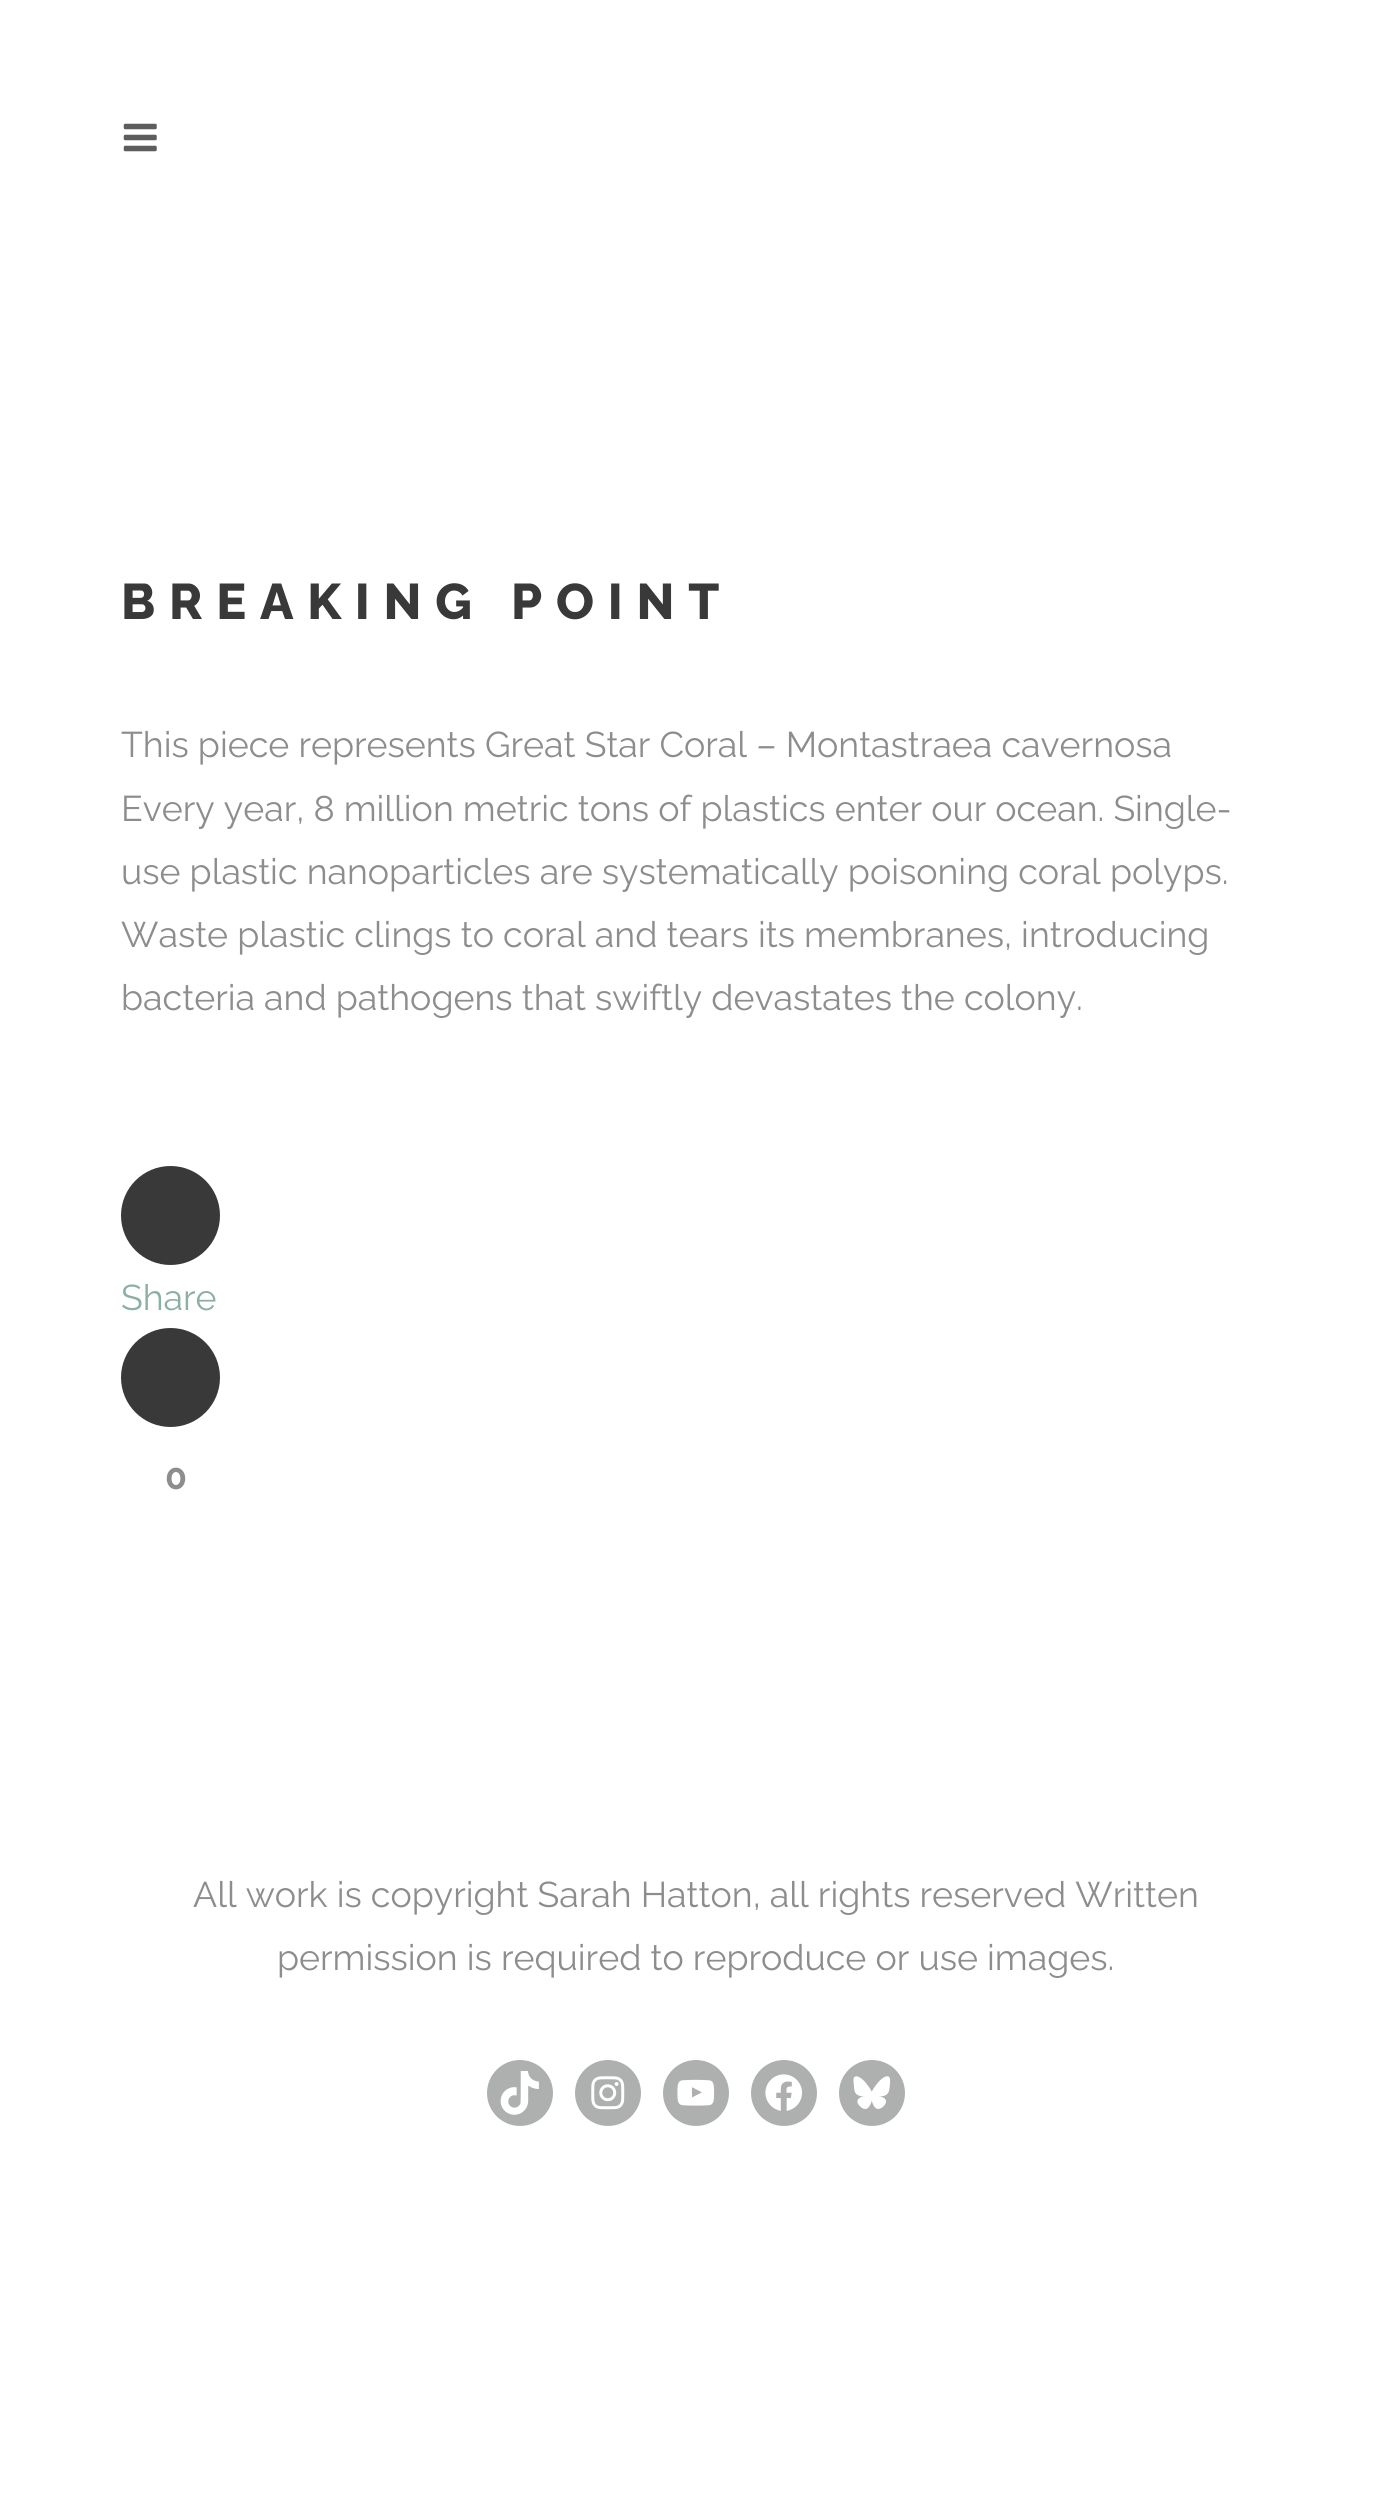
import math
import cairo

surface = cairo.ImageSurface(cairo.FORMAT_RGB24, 1389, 2495)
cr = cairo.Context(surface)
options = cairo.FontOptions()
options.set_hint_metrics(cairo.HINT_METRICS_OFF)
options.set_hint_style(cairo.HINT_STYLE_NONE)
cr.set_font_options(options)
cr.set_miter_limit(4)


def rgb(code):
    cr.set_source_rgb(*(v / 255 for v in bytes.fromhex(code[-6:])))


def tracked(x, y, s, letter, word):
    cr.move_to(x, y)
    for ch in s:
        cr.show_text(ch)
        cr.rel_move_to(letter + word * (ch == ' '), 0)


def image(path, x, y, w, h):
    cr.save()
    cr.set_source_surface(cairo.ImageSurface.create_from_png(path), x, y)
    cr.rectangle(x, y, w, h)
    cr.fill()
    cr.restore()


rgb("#ffffff")
cr.paint()
image("img/1.png", 123, 123, 34, 29)
rgb("#393939")
cr.arc(170.5, 1215.5, 49.5, 0, 2 * math.pi)
cr.fill()
cr.arc(170.5, 1377.5, 49.5, 0, 2 * math.pi)
cr.fill()
rgb("#aeb0b0")
cr.arc(520, 2093, 33, 0, 2 * math.pi)
cr.fill()
image("img/2.png", 500, 2071, 39, 44)
cr.arc(608, 2093, 33, 0, 2 * math.pi)
cr.fill()
image("img/3.png", 591, 2076, 34, 34)
cr.arc(696, 2093, 33, 0, 2 * math.pi)
cr.fill()
image("img/4.png", 677, 2079, 38, 27)
cr.arc(784, 2093, 33, 0, 2 * math.pi)
cr.fill()
image("img/5.png", 765, 2074, 38, 37)
cr.arc(872, 2093, 33, 0, 2 * math.pi)
cr.fill()
image("img/6.png", 853, 2076, 38, 33)
cr.select_font_face("Raleway ExtraBold")
cr.set_font_size(50)
rgb("#393939")
tracked(121, 619, "BREAKING POINT", 13.75, 0)
cr.select_font_face("Raleway")
cr.set_font_size(35.75)
rgb("#8d8d8d")
for x, y, s in [
    (121, 757, "This piece represents Great Star Coral – Montastraea cavernosa"),
    (121, 821, "Every year, 8 million metric tons of plastics enter our ocean. Single-"),
    (121, 884, "use plastic nanoparticles are systematically poisoning coral polyps."),
    (121, 947, "Waste plastic clings to coral and tears its membranes, introducing"),
    (121, 1010, "bacteria and pathogens that swiftly devastates the colony."),
]:
    cr.move_to(x, y)
    cr.show_text(s)
rgb("#8bafa1")
cr.move_to(121, 1310)
cr.show_text("Share")
cr.select_font_face("Raleway", cairo.FONT_SLANT_NORMAL, cairo.FONT_WEIGHT_BOLD)
rgb("#8d8d8d")
cr.move_to(165, 1489)
cr.show_text("0")
cr.select_font_face("Raleway")
cr.move_to(193, 1907)
cr.show_text("All work is copyright Sarah Hatton, all rights reserved Written")
cr.move_to(277, 1970)
cr.show_text("permission is required to reproduce or use images.")
surface.write_to_png("page.png")
